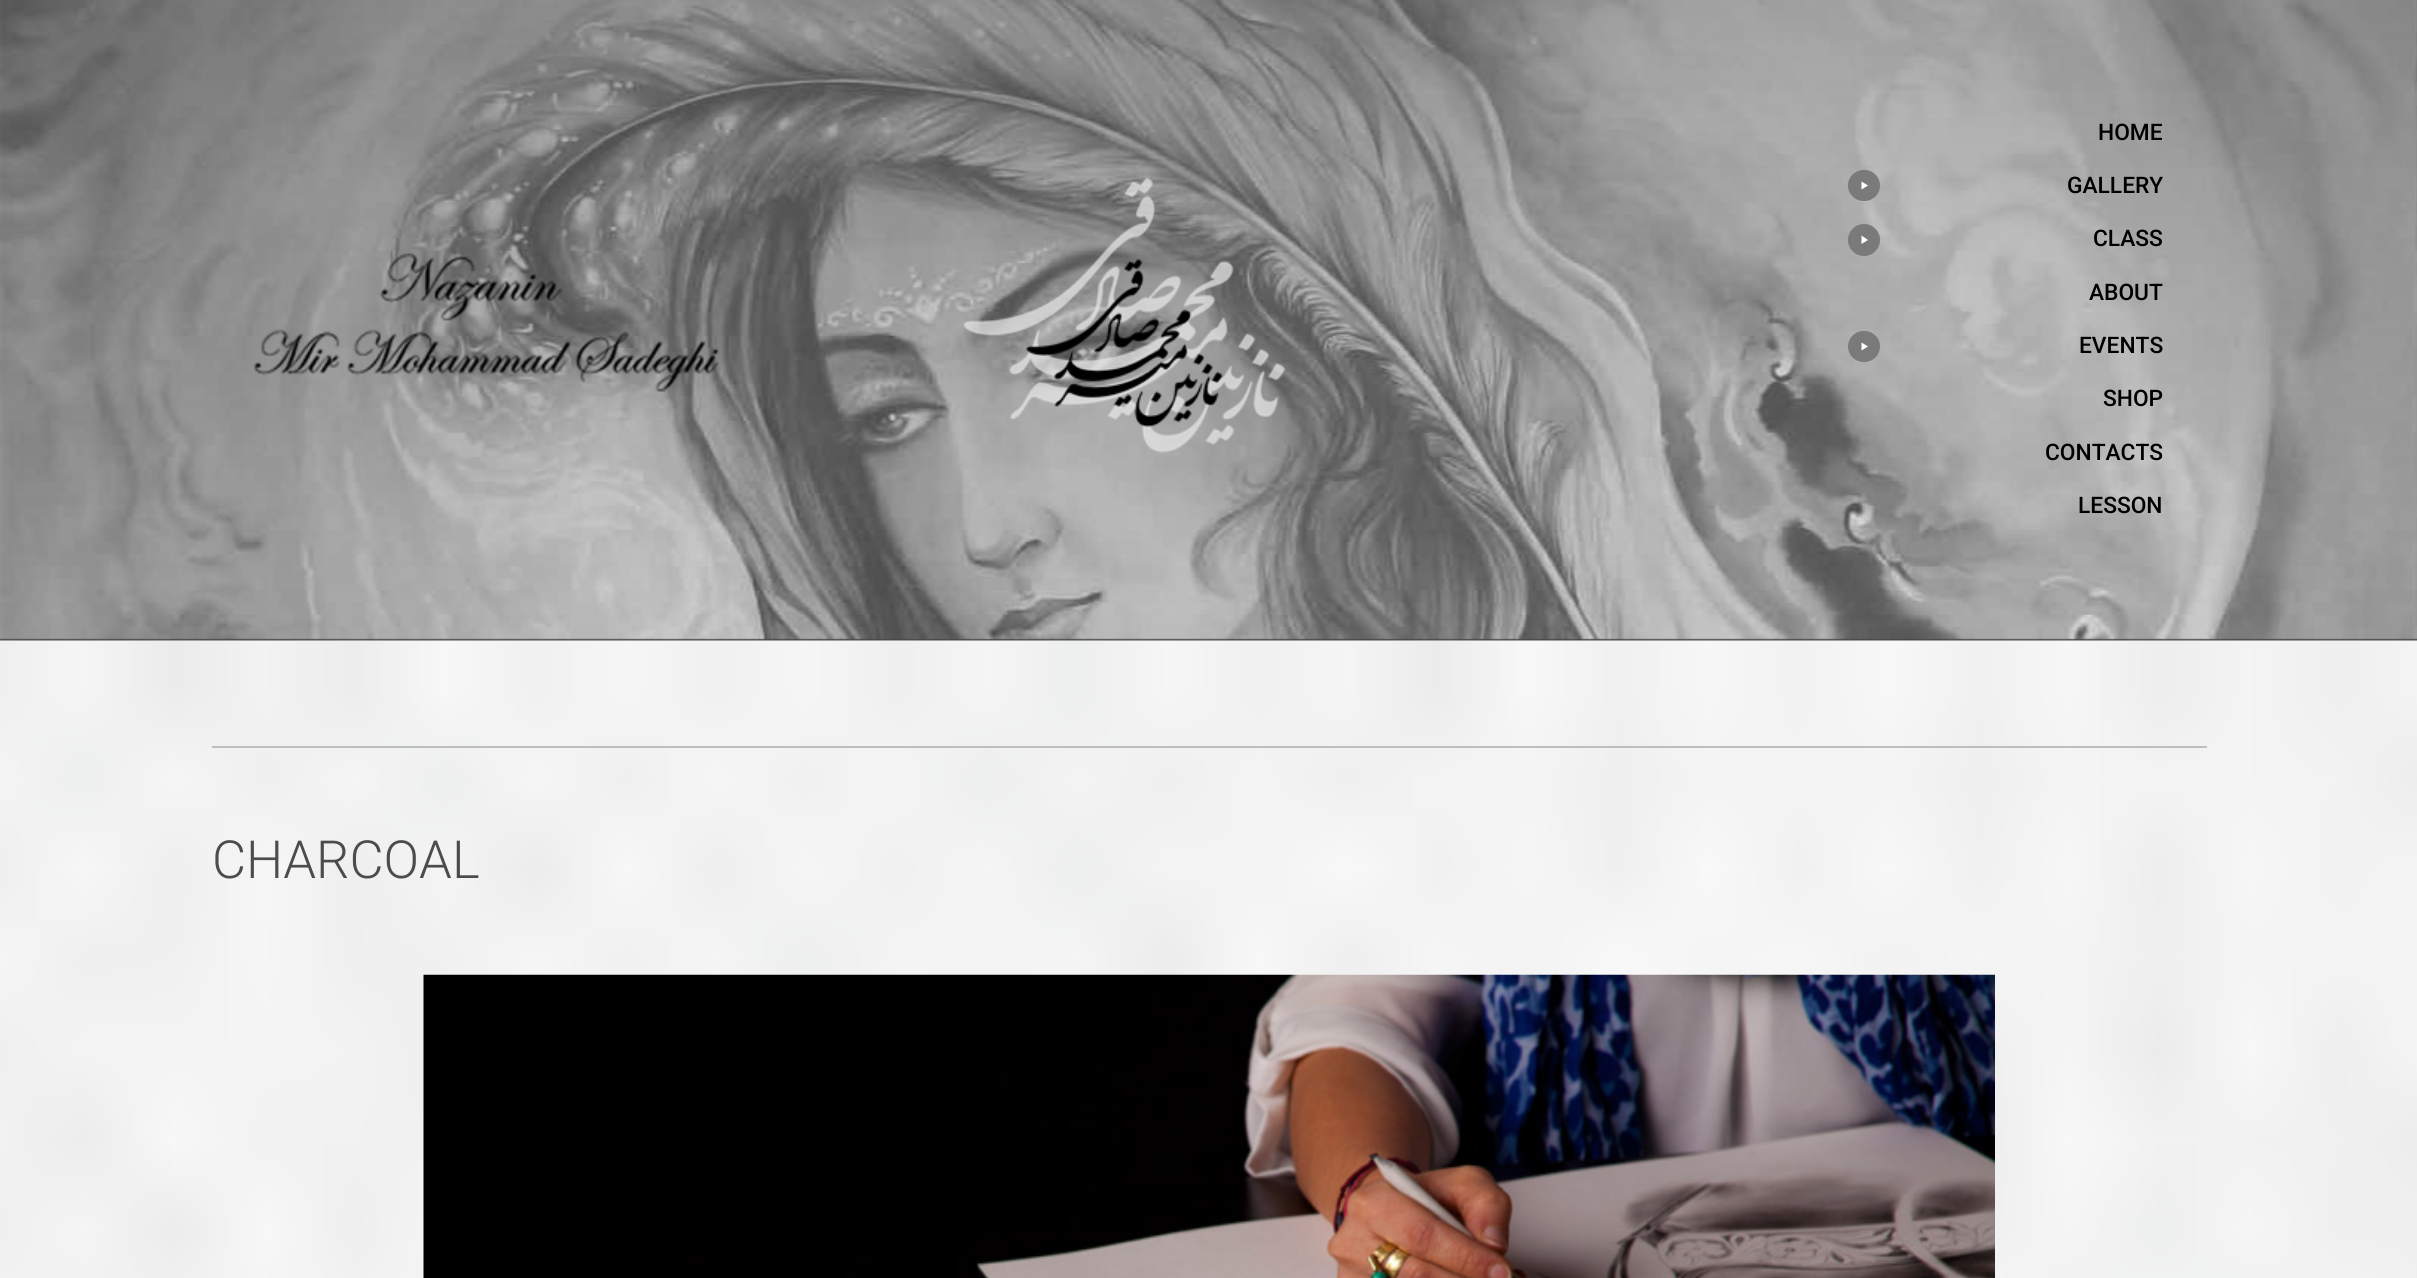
import math
import cairo

surface = cairo.ImageSurface(cairo.FORMAT_RGB24, 2417, 1278)
cr = cairo.Context(surface)
options = cairo.FontOptions()
options.set_hint_metrics(cairo.HINT_METRICS_OFF)
options.set_hint_style(cairo.HINT_STYLE_NONE)
cr.set_font_options(options)
cr.set_miter_limit(4)


def rgb(code):
    cr.set_source_rgb(*(v / 255 for v in bytes.fromhex(code[-6:])))


def rrect(x, y, w, h, r):
    cr.new_sub_path()
    for i, (u, v) in enumerate([(x + w - r, y + h - r), (x + r, y + h - r), (x + r, y + r), (x + w - r, y + r)]):
        cr.arc(u, v, r, i * math.pi / 2, (i + 1) * math.pi / 2)
    cr.close_path()


def image(path, x, y, w, h):
    cr.save()
    cr.set_source_surface(cairo.ImageSurface.create_from_png(path), x, y)
    cr.rectangle(x, y, w, h)
    cr.fill()
    cr.restore()


rgb("#ffffff")
cr.paint()
image("img/3.png", 0, 640, 2417, 638)
image("img/1.png", 0, 0, 2417, 641)
gradient = cairo.LinearGradient(1209, 0, 1209, 641)
gradient.add_color_stop_rgba(0, 0.6, 0.6, 0.6, 0.5)
gradient.add_color_stop_rgba(1, 1, 1, 1, 0.28)
cr.set_source(gradient)
cr.rectangle(0, 0, 2417, 641)
cr.fill()
image("img/2.png", 254, 177, 1032, 276)
rgb("#7a7a7a")
rrect(1848, 170, 32, 31, 15.5)
cr.fill()
rgb("#ffffff")
cr.new_path()
cr.move_to(1861.5, 181.5)
cr.line_to(1868, 185.5)
cr.line_to(1861.5, 189.5)
cr.close_path()
cr.fill()
rgb("#7a7a7a")
cr.arc(1864, 240, 16, 0, 2 * math.pi)
cr.fill()
rgb("#ffffff")
cr.new_path()
cr.move_to(1861.5, 235.5)
cr.line_to(1868, 240)
cr.line_to(1861.5, 244)
cr.close_path()
cr.fill()
rgb("#7a7a7a")
rrect(1848, 331, 32, 31, 15.5)
cr.fill()
rgb("#ffffff")
cr.new_path()
cr.move_to(1861.5, 342.5)
cr.line_to(1868, 346.5)
cr.line_to(1861.5, 350.5)
cr.close_path()
cr.fill()
rgb("#bebebe")
cr.rectangle(212, 746, 1995, 2)
cr.fill()
image("img/4.png", 423, 974, 1572, 304)
cr.select_font_face("Roboto Medium")
cr.set_font_size(22.75)
rgb("#000000")
for x, y, s in [
    (2098, 140, "HOME"),
    (2067, 193, "GALLERY"),
    (2093, 246, "CLASS"),
    (2089, 300, "ABOUT"),
    (2079, 353, "EVENTS"),
    (2103, 406, "SHOP"),
    (2045, 460, "CONTACTS"),
    (2078, 513, "LESSON"),
]:
    cr.move_to(x, y)
    cr.show_text(s)
cr.select_font_face("Roboto Light")
cr.set_font_size(52.5)
rgb("#4c4c4c")
cr.move_to(212, 878)
cr.show_text("CHARCOAL")
surface.write_to_png("page.png")
